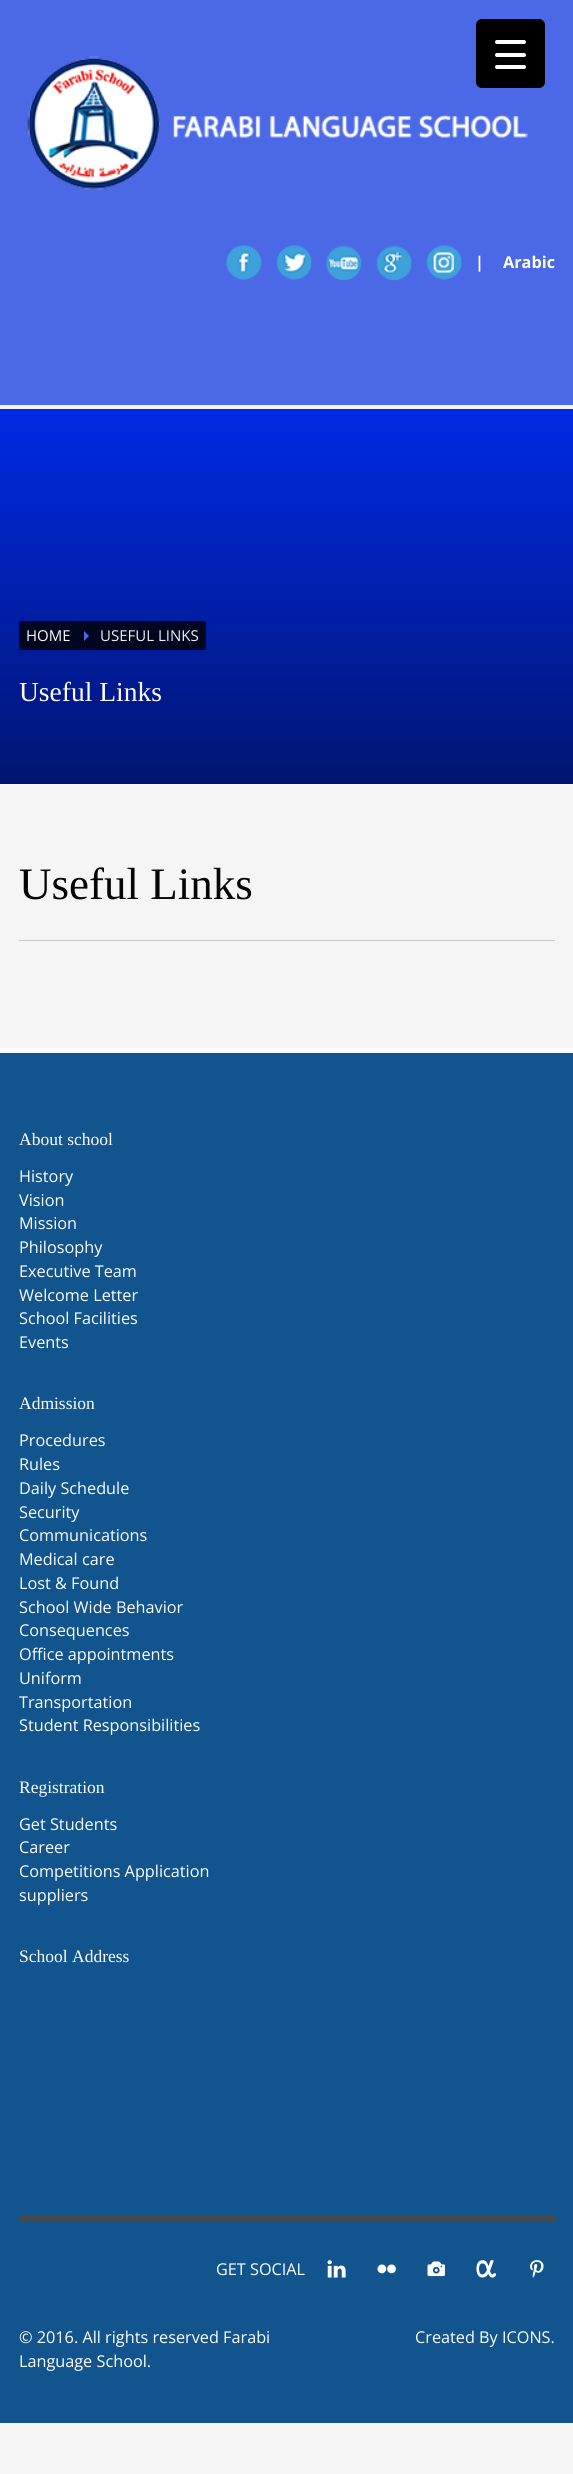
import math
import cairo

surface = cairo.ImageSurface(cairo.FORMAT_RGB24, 573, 2474)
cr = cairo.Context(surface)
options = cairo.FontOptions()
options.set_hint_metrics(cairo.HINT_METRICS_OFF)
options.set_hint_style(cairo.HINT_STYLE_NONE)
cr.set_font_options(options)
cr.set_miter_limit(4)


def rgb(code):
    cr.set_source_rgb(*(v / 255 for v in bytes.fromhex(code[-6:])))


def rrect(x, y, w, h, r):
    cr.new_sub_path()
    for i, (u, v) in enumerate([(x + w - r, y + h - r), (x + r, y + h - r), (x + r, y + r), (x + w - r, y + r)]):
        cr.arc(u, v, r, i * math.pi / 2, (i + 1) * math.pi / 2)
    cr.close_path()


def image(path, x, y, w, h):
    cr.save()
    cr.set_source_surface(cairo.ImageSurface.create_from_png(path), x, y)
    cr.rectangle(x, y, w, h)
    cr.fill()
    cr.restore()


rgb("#f5f5f5")
cr.paint()
rgb("#4b68e6")
cr.rectangle(0, 0, 573, 405)
cr.fill()
image("img/1.png", 27, 56, 501, 134)
rgb("#000000")
rrect(476, 19, 69, 69, 6)
cr.fill()
rgb("#ffffff")
rrect(495, 53, 31, 4, 2)
cr.fill()
rrect(495, 40, 31, 4, 2)
cr.fill()
rrect(495, 65, 31, 4, 2)
cr.fill()
image("img/2.png", 226, 245, 36, 35)
image("img/3.png", 276, 245, 36, 35)
image("img/4.png", 326, 245, 36, 36)
image("img/5.png", 376, 245, 36, 36)
image("img/6.png", 426, 245, 36, 35)
gradient = cairo.LinearGradient(287, 409, 287, 784)
gradient.add_color_stop_rgba(0, 0, 0.165, 0.894, 1)
gradient.add_color_stop_rgba(1, 0, 0.082, 0.447, 1)
cr.set_source(gradient)
cr.rectangle(0, 409, 573, 375)
cr.fill()
cr.set_source_rgba(0, 0, 0, 0.8)
rrect(19, 621, 187, 29, 2.5)
cr.fill()
rgb("#4b68e6")
cr.new_path()
cr.move_to(84, 641)
cr.line_to(84, 631)
cr.line_to(89, 636)
cr.close_path()
cr.fill()
for x, y, w, h, color in [
    (19, 940, 536, 1, "#cbcbcb"),
    (0, 1053, 573, 1370, "#11548e"),
    (0, 1048, 573, 5, "#ffffff"),
    (19, 2215, 536, 6, "#484848"),
]:
    rgb(color)
    cr.rectangle(x, y, w, h)
    cr.fill()
image("img/7.png", 327, 2260, 19, 18)
image("img/8.png", 377, 2264, 19, 10)
image("img/9.png", 427, 2261, 18, 16)
image("img/10.png", 476, 2260, 21, 18)
image("img/11.png", 530, 2260, 14, 18)
cr.select_font_face("Open Sans", cairo.FONT_SLANT_NORMAL, cairo.FONT_WEIGHT_BOLD)
cr.set_font_size(16.25)
rgb("#ffffff")
cr.move_to(475, 268)
cr.show_text("|")
cr.move_to(503, 268)
cr.show_text("Arabic")
cr.select_font_face("Open Sans")
cr.set_font_size(15)
cr.move_to(26, 641)
cr.show_text("HOME")
rgb("#eeeeee")
cr.move_to(100, 641)
cr.show_text("USEFUL LINKS")
cr.select_font_face("Liberation Serif")
cr.set_font_size(27.5)
rgb("#ffffff")
cr.move_to(19, 701)
cr.show_text("Useful Links")
cr.set_font_size(45)
rgb("#050505")
cr.move_to(19, 899)
cr.show_text("Useful Links")
cr.set_font_size(17.5)
rgb("#ffffff")
cr.move_to(19, 1145)
cr.show_text("About school")
cr.select_font_face("Open Sans")
cr.set_font_size(16.25)
for x, y, s in [
    (19, 1182, "History"),
    (19, 1206, "Vision"),
    (19, 1229, "Mission"),
    (19, 1253, "Philosophy"),
    (19, 1277, "Executive Team"),
    (19, 1301, "Welcome Letter"),
    (19, 1324, "School Facilities"),
    (19, 1348, "Events"),
]:
    cr.move_to(x, y)
    cr.show_text(s)
cr.select_font_face("Liberation Serif")
cr.set_font_size(17.5)
cr.move_to(19, 1409)
cr.show_text("Admission")
cr.select_font_face("Open Sans")
cr.set_font_size(16.25)
for x, y, s in [
    (19, 1446, "Procedures"),
    (19, 1470, "Rules"),
    (19, 1494, "Daily Schedule"),
    (19, 1518, "Security"),
    (19, 1541, "Communications"),
    (19, 1565, "Medical care"),
    (19, 1589, "Lost & Found"),
    (19, 1613, "School Wide Behavior"),
    (19, 1636, "Consequences"),
    (19, 1660, "Office appointments"),
    (19, 1684, "Uniform"),
    (19, 1708, "Transportation"),
    (19, 1731, "Student Responsibilities"),
]:
    cr.move_to(x, y)
    cr.show_text(s)
cr.select_font_face("Liberation Serif")
cr.set_font_size(17.5)
cr.move_to(19, 1793)
cr.show_text("Registration")
cr.select_font_face("Open Sans")
cr.set_font_size(16.25)
for x, y, s in [
    (19, 1830, "Get Students"),
    (19, 1853, "Career"),
    (19, 1877, "Competitions Application"),
    (19, 1901, "suppliers"),
]:
    cr.move_to(x, y)
    cr.show_text(s)
cr.select_font_face("Liberation Serif")
cr.set_font_size(17.5)
cr.move_to(19, 1962)
cr.show_text("School Address")
cr.select_font_face("Open Sans")
cr.set_font_size(16.25)
for x, y, s in [
    (216, 2275, "GET SOCIAL"),
    (19, 2343, "© 2016. All rights reserved Farabi"),
    (19, 2367, "Language School."),
    (415, 2343, "Created By ICONS."),
]:
    cr.move_to(x, y)
    cr.show_text(s)
surface.write_to_png("page.png")
